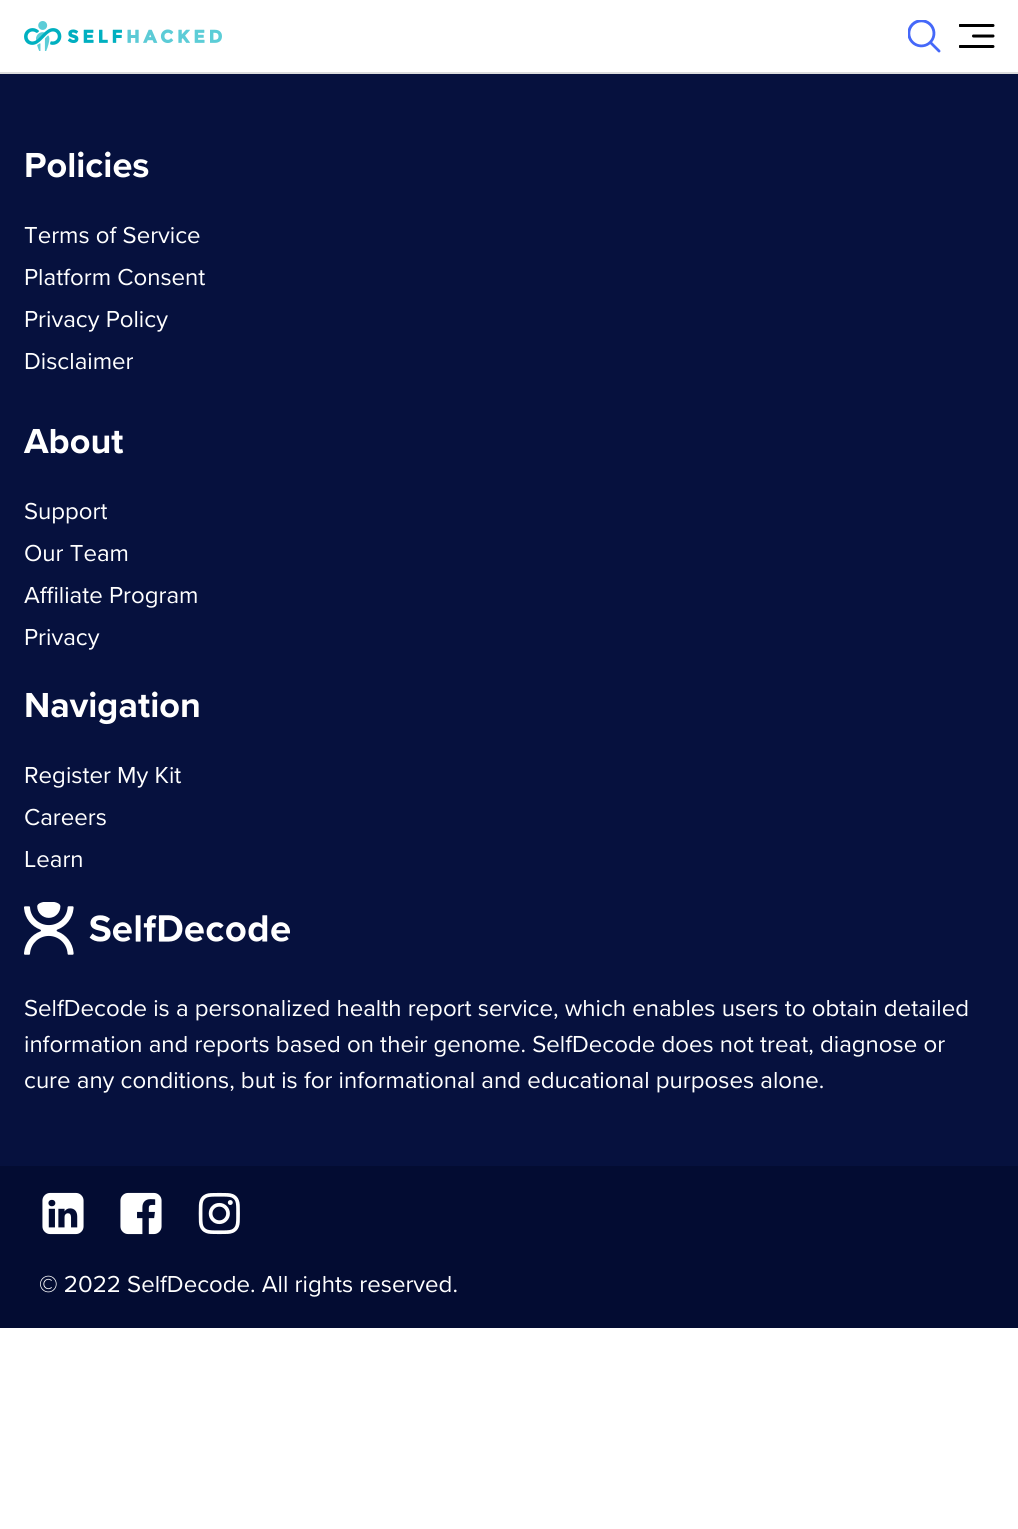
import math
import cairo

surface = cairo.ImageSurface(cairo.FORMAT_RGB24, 1018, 1529)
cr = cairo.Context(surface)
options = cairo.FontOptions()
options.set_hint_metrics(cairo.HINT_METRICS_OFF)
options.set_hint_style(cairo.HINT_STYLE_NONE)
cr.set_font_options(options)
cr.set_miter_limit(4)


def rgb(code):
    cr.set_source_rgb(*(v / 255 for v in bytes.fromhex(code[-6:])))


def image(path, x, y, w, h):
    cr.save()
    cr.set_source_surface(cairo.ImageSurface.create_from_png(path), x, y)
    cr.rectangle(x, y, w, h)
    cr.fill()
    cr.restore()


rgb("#ffffff")
cr.paint()
rgb("#dddddd")
cr.rectangle(0, 72, 1018, 2)
cr.fill()
image("img/1.png", 24, 21, 198, 30)
image("img/2.png", 908, 20, 33, 33)
image("img/3.png", 959, 24, 36, 24)
rgb("#06113e")
cr.rectangle(0, 74, 1018, 1092)
cr.fill()
image("img/4.png", 24, 902, 266, 53)
rgb("#030c32")
cr.rectangle(0, 1166, 1018, 162)
cr.fill()
image("img/5.png", 42, 1192, 42, 43)
image("img/6.png", 120, 1192, 42, 43)
image("img/7.png", 198, 1192, 42, 43)
cr.select_font_face("Proxima Nova", cairo.FONT_SLANT_NORMAL, cairo.FONT_WEIGHT_BOLD)
cr.set_font_size(36)
rgb("#ffffff")
cr.move_to(24, 177)
cr.show_text("Policies")
cr.select_font_face("Proxima Nova")
cr.set_font_size(24)
for x, y, s in [
    (24, 243, "Terms of Service"),
    (24, 285, "Platform Consent"),
    (24, 327, "Privacy Policy"),
    (24, 369, "Disclaimer"),
]:
    cr.move_to(x, y)
    cr.show_text(s)
cr.select_font_face("Proxima Nova", cairo.FONT_SLANT_NORMAL, cairo.FONT_WEIGHT_BOLD)
cr.set_font_size(36)
cr.move_to(24, 453)
cr.show_text("About")
cr.select_font_face("Proxima Nova")
cr.set_font_size(24)
for x, y, s in [
    (24, 519, "Support"),
    (24, 561, "Our Team"),
    (24, 603, "Affiliate Program"),
    (24, 645, "Privacy"),
]:
    cr.move_to(x, y)
    cr.show_text(s)
cr.select_font_face("Proxima Nova", cairo.FONT_SLANT_NORMAL, cairo.FONT_WEIGHT_BOLD)
cr.set_font_size(36)
cr.move_to(24, 717)
cr.show_text("Navigation")
cr.select_font_face("Proxima Nova")
cr.set_font_size(24)
for x, y, s in [
    (24, 783, "Register My Kit"),
    (24, 825, "Careers"),
    (24, 867, "Learn"),
    (24, 1016, "SelfDecode is a personalized health report service, which enables users to obtain detailed"),
    (24, 1052, "information and reports based on their genome. SelfDecode does not treat, diagnose or"),
    (24, 1088, "cure any conditions, but is for informational and educational purposes alone."),
    (39, 1292, "© 2022 SelfDecode. All rights reserved."),
]:
    cr.move_to(x, y)
    cr.show_text(s)
surface.write_to_png("page.png")
